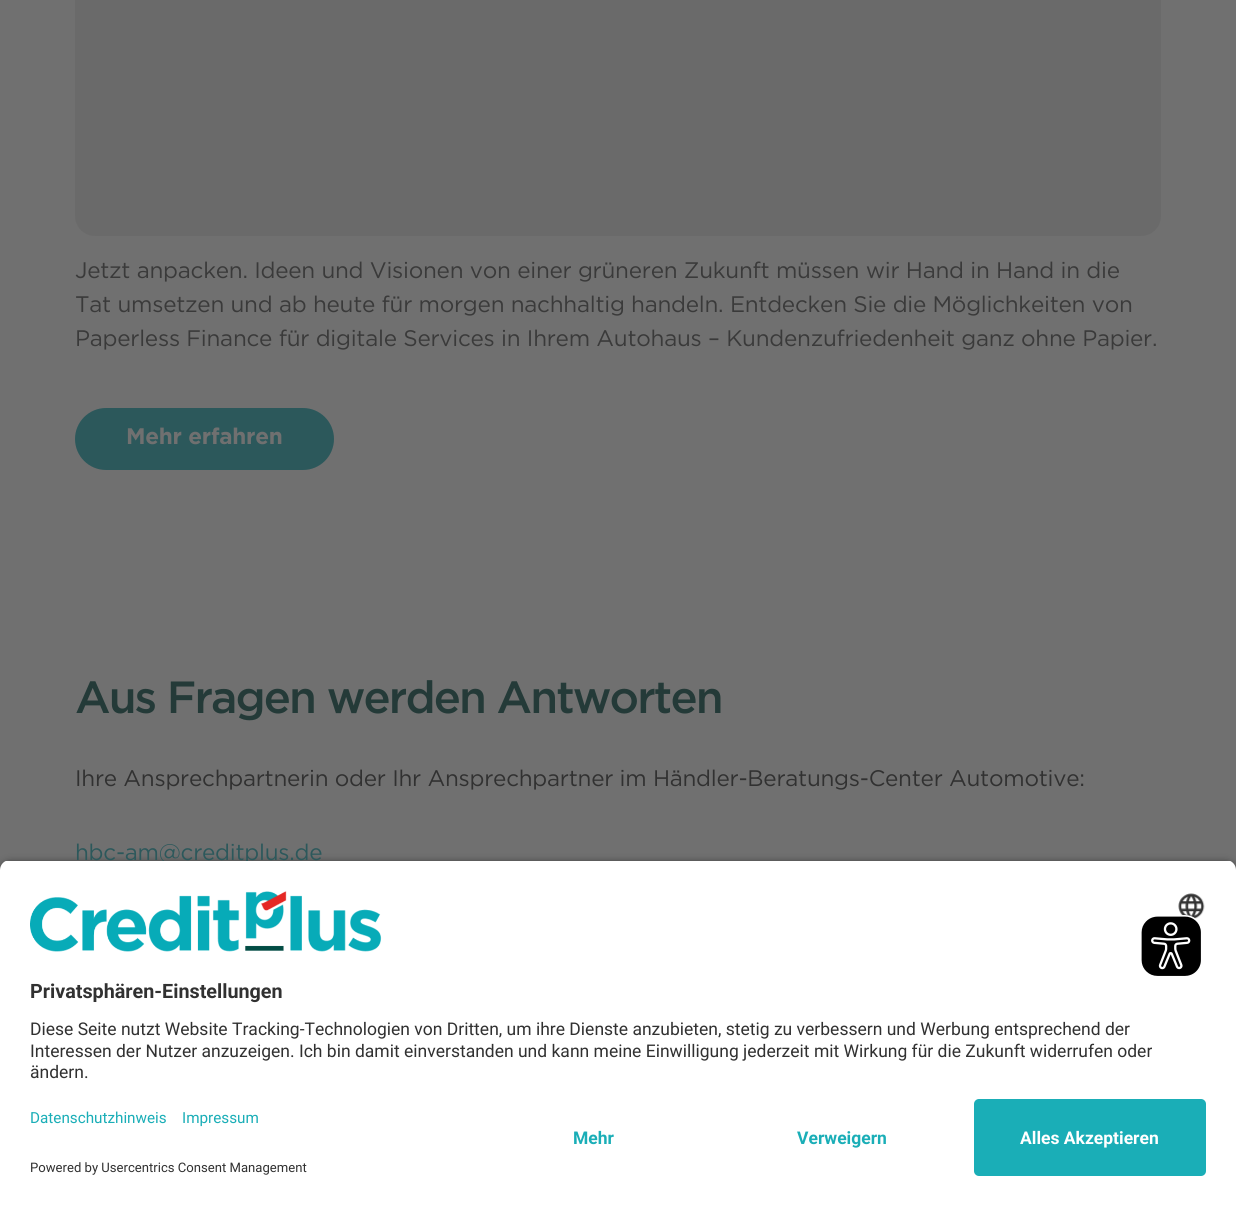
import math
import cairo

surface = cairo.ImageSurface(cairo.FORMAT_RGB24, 1236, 1206)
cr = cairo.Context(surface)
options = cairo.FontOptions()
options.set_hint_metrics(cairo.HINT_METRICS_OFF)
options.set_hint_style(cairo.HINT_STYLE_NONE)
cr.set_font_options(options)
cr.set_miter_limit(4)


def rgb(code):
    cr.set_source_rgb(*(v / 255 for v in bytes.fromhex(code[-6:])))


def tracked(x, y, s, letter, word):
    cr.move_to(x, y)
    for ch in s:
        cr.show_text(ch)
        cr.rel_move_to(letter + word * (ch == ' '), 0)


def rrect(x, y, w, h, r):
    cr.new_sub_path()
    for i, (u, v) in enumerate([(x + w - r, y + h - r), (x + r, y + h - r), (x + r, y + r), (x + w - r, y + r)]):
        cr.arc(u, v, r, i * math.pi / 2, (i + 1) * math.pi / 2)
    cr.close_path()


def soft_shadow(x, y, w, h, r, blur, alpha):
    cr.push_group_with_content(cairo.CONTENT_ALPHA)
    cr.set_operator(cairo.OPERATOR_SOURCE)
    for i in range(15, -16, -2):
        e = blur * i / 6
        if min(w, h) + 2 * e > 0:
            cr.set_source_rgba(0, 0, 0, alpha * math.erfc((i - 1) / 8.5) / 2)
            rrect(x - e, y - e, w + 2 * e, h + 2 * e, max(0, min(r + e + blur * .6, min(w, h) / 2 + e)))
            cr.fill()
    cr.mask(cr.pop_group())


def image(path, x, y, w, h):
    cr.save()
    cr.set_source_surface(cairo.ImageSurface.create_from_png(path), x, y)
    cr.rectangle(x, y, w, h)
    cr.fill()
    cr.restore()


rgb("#707070")
cr.paint()
rgb("#6a6a6a")
rrect(75, -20, 1086, 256, 20)
cr.fill()
rgb("#2c585b")
rrect(75, 408, 259, 62, 31)
cr.fill()
rgb("#000000")
soft_shadow(0, 864, 1236, 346, 10, 4.5, 0.8)
rgb("#ffffff")
cr.rectangle(0, 1089, 1236, 117)
cr.fill()
rgb("#1aaeb7")
rrect(974, 1099, 232, 77, 5)
cr.fill()
cr.select_font_face("Gotham")
cr.set_font_size(22.5)
rgb("#3a3a3a")
for x, y, s in [
    (75, 278, "Jetzt anpacken. Ideen und Visionen von einer grüneren Zukunft müssen wir Hand in Hand in die"),
    (75, 312, "Tat umsetzen und ab heute für morgen nachhaltig handeln. Entdecken Sie die Möglichkeiten von"),
    (75, 346, "Paperless Finance für digitale Services in Ihrem Autohaus – Kundenzufriedenheit ganz ohne Papier."),
]:
    tracked(x, y, s, -0.25, 0)
cr.select_font_face("Gotham", cairo.FONT_SLANT_NORMAL, cairo.FONT_WEIGHT_BOLD)
rgb("#707070")
tracked(126, 444, "Mehr erfahren", -0.25, 0)
cr.select_font_face("Gotham Medium")
cr.set_font_size(45)
rgb("#243a38")
tracked(75, 713, "Aus Fragen werden Antworten", -1.9, 0)
cr.select_font_face("Gotham")
cr.set_font_size(22.5)
rgb("#313131")
tracked(75, 786, "Ihre Ansprechpartnerin oder Ihr Ansprechpartner im Händler-Beratungs-Center Automotive:", -0.25, 0)
rgb("#2c585b")
tracked(75, 860, "hbc-am@creditplus.de", -0.25, 0)
cr.save()
cr.new_path()
cr.move_to(10, 860)
cr.line_to(1226, 860)
cr.curve_to(1231.5, 860, 1236, 864.5, 1236, 870)
cr.line_to(1236, 1089)
cr.line_to(0, 1089)
cr.line_to(0, 870)
cr.curve_to(0, 864.5, 4.5, 860, 10, 860)
cr.close_path()
cr.clip()
rgb("#ffffff")
cr.rectangle(0, 861, 1236, 228)
cr.fill()
cr.restore()
image("img/2.png", 30, 891, 352, 61)
image("img/3.png", 1178, 893, 27, 26)
image("img/1.png", 1141, 915, 60, 61)
cr.select_font_face("Roboto", cairo.FONT_SLANT_NORMAL, cairo.FONT_WEIGHT_BOLD)
cr.set_font_size(19.75)
rgb("#313131")
cr.move_to(30, 998)
cr.show_text("Privatsphären-Einstellungen")
cr.select_font_face("Roboto")
cr.set_font_size(17.5)
for x, y, s in [
    (30, 1035, "Diese Seite nutzt Website Tracking-Technologien von Dritten, um ihre Dienste anzubieten, stetig zu verbessern und Werbung entsprechend der"),
    (30, 1057, "Interessen der Nutzer anzuzeigen. Ich bin damit einverstanden und kann meine Einwilligung jederzeit mit Wirkung für die Zukunft widerrufen oder"),
    (30, 1078, "ändern."),
]:
    cr.move_to(x, y)
    cr.show_text(s)
cr.set_font_size(15.25)
rgb("#1aaeb7")
cr.move_to(30, 1123)
cr.show_text("Datenschutzhinweis")
cr.move_to(182, 1123)
cr.show_text("Impressum")
cr.set_font_size(13.1)
rgb("#313131")
cr.move_to(30, 1172)
cr.show_text("Powered by Usercentrics Consent Management")
cr.select_font_face("Roboto", cairo.FONT_SLANT_NORMAL, cairo.FONT_WEIGHT_BOLD)
cr.set_font_size(17.5)
rgb("#1aaeb7")
cr.move_to(573, 1144)
cr.show_text("Mehr")
cr.move_to(797, 1144)
cr.show_text("Verweigern")
rgb("#ffffff")
cr.move_to(1020, 1144)
cr.show_text("Alles Akzeptieren")
surface.write_to_png("page.png")
